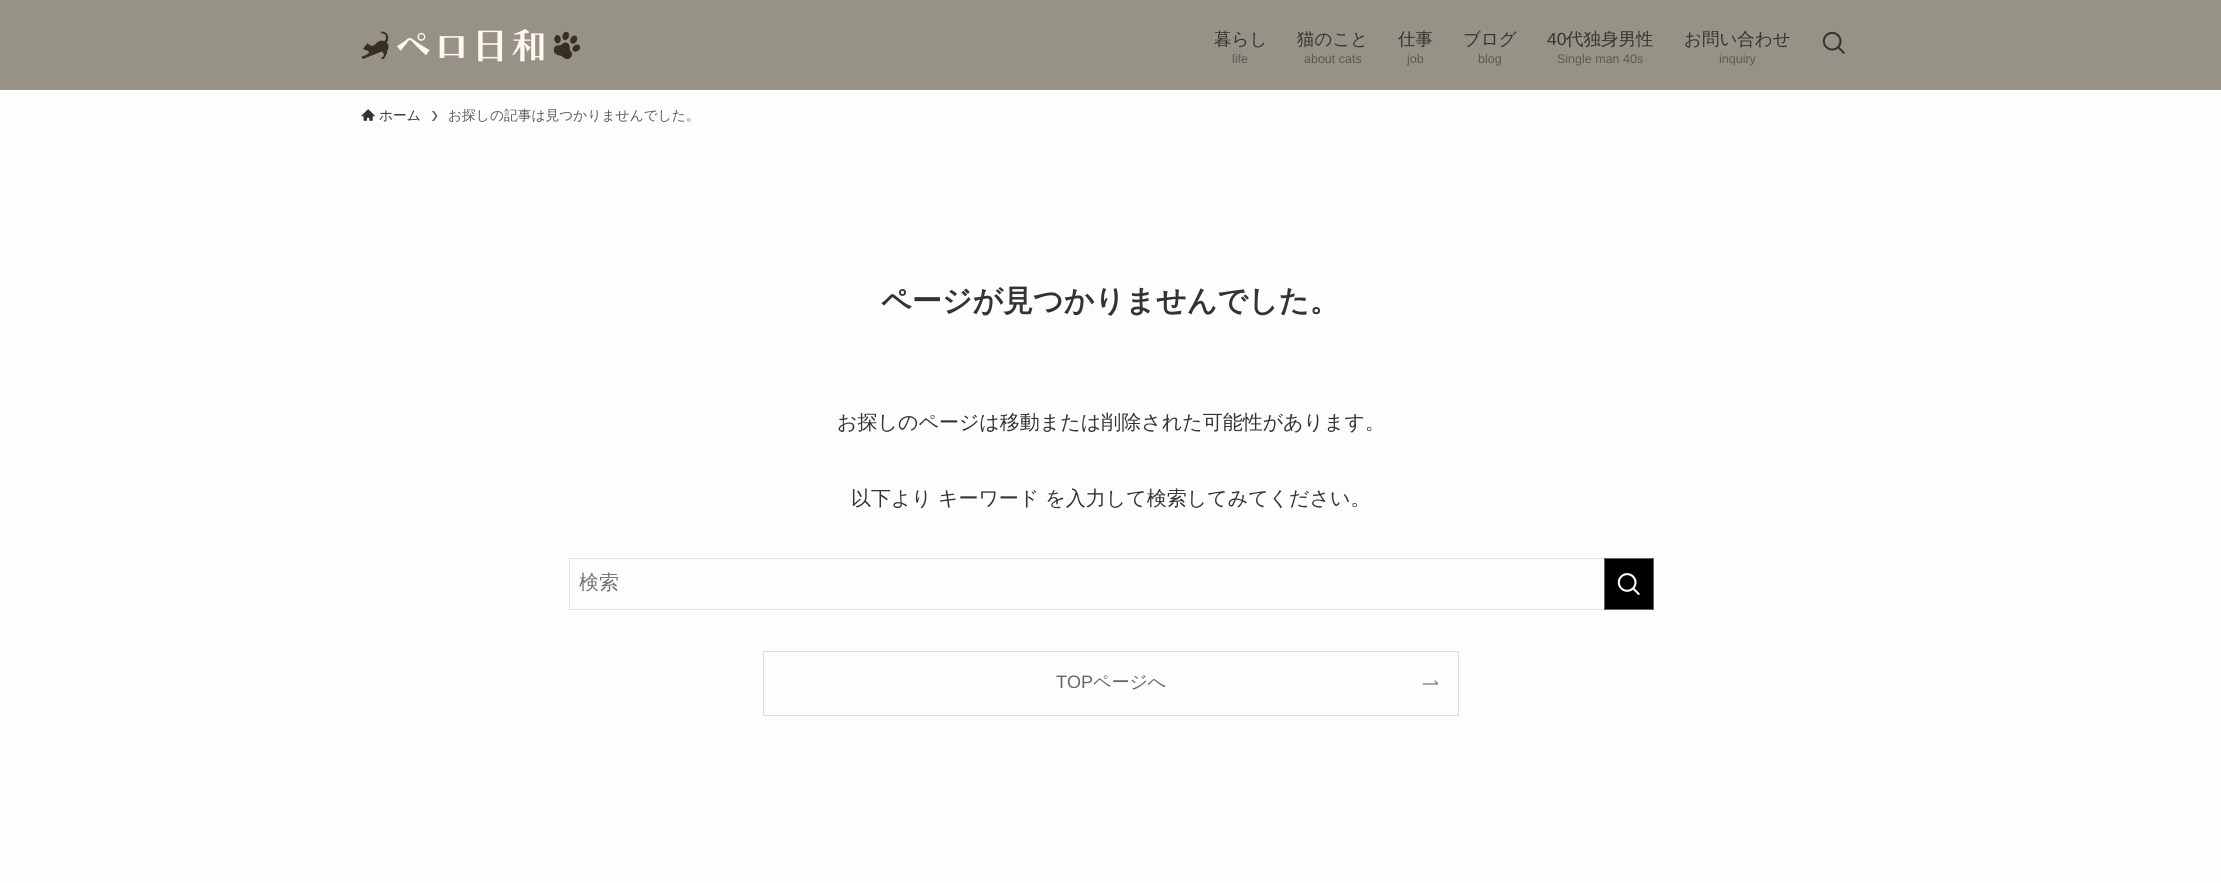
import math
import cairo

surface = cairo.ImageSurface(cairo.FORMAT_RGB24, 2221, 883)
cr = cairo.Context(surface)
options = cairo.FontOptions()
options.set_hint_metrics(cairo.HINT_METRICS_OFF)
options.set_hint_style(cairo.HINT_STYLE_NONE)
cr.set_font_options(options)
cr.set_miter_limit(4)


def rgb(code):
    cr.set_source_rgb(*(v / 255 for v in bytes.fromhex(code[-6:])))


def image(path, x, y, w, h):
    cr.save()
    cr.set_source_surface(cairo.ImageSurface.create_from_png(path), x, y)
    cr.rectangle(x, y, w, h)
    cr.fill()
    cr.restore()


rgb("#fdfdfd")
cr.paint()
rgb("#969285")
cr.rectangle(0, 0, 2221, 90)
cr.fill()
image("img/1.png", 361, 28, 220, 34)
image("img/2.png", 1822, 31, 23, 23)
image("img/3.png", 361, 109, 14, 12)
rgb("#5b5b5b")
cr.new_path()
cr.move_to(434, 111)
cr.line_to(432, 111)
cr.line_to(435.5, 116)
cr.line_to(432, 121)
cr.line_to(434, 121)
cr.line_to(437.5, 116)
cr.close_path()
cr.fill()
cr.rectangle(569.5, 558.5, 1084, 51)
rgb("#e3e3e3")
cr.set_line_width(1)
cr.stroke()
rgb("#000000")
cr.rectangle(1604.5, 558.5, 49, 51)
cr.fill_preserve()
rgb("#646464")
cr.stroke()
image("img/4.png", 1617, 573, 23, 22)
cr.rectangle(763.5, 651.5, 695, 64)
rgb("#dcdcdc")
cr.stroke()
image("img/5.png", 1422, 680, 17, 5)
cr.select_font_face("WenQuanYi Zen Hei Medium")
cr.set_font_size(17.5)
rgb("#333333")
cr.move_to(1214, 45)
cr.show_text("暮らし")
cr.select_font_face("Liberation Sans")
cr.set_font_size(12.5)
rgb("#5b5954")
cr.move_to(1232, 63)
cr.show_text("life")
cr.select_font_face("WenQuanYi Zen Hei Medium")
cr.set_font_size(17.5)
rgb("#333333")
cr.move_to(1297, 45)
cr.show_text("猫のこと")
cr.select_font_face("Liberation Sans")
cr.set_font_size(12.5)
rgb("#5b5954")
cr.move_to(1304, 63)
cr.show_text("about cats")
cr.select_font_face("WenQuanYi Zen Hei Medium")
cr.set_font_size(17.5)
rgb("#333333")
cr.move_to(1398, 45)
cr.show_text("仕事")
cr.select_font_face("Liberation Sans")
cr.set_font_size(12.5)
rgb("#5b5954")
cr.move_to(1407, 63)
cr.show_text("job")
cr.select_font_face("WenQuanYi Zen Hei Medium")
cr.set_font_size(17.5)
rgb("#333333")
cr.move_to(1463, 45)
cr.show_text("ブログ")
cr.select_font_face("Liberation Sans")
cr.set_font_size(12.5)
rgb("#5b5954")
cr.move_to(1478, 63)
cr.show_text("blog")
cr.set_font_size(17.5)
rgb("#333333")
cr.move_to(1547, 45)
cr.show_text("40")
cr.select_font_face("WenQuanYi Zen Hei Medium")
cr.move_to(1566, 45)
cr.show_text("代独身男性")
cr.select_font_face("Liberation Sans")
cr.set_font_size(12.5)
rgb("#5b5954")
cr.move_to(1557, 63)
cr.show_text("Single man 40s")
cr.select_font_face("WenQuanYi Zen Hei Medium")
cr.set_font_size(17.5)
rgb("#333333")
cr.move_to(1684, 45)
cr.show_text("お問い合わせ")
cr.select_font_face("Liberation Sans")
cr.set_font_size(12.5)
rgb("#5b5954")
cr.move_to(1719, 63)
cr.show_text("inquiry")
cr.select_font_face("WenQuanYi Zen Hei Medium")
cr.set_font_size(13.75)
rgb("#333333")
cr.move_to(379, 120)
cr.show_text("ホーム")
rgb("#5b5b5b")
cr.move_to(448, 120)
cr.show_text("お探しの記事は見つかりませんでした。")
cr.select_font_face("WenQuanYi Zen Hei", cairo.FONT_SLANT_NORMAL, cairo.FONT_WEIGHT_BOLD)
cr.set_font_size(30)
rgb("#333333")
cr.move_to(881, 311)
cr.show_text("ページが見つかりませんでした。")
cr.select_font_face("WenQuanYi Zen Hei Medium")
cr.set_font_size(20)
cr.move_to(837, 429)
cr.show_text("お探しのページは移動または削除された可能性があります。")
cr.move_to(851, 505)
cr.show_text("以下より キーワード を入力して検索してみてください。")
rgb("#757575")
cr.move_to(579, 589)
cr.show_text("検索")
cr.select_font_face("Liberation Sans")
cr.set_font_size(18)
rgb("#666666")
cr.move_to(1056, 688)
cr.show_text("TOP")
cr.select_font_face("WenQuanYi Zen Hei Medium")
cr.move_to(1093, 688)
cr.show_text("ページへ")
surface.write_to_png("page.png")
